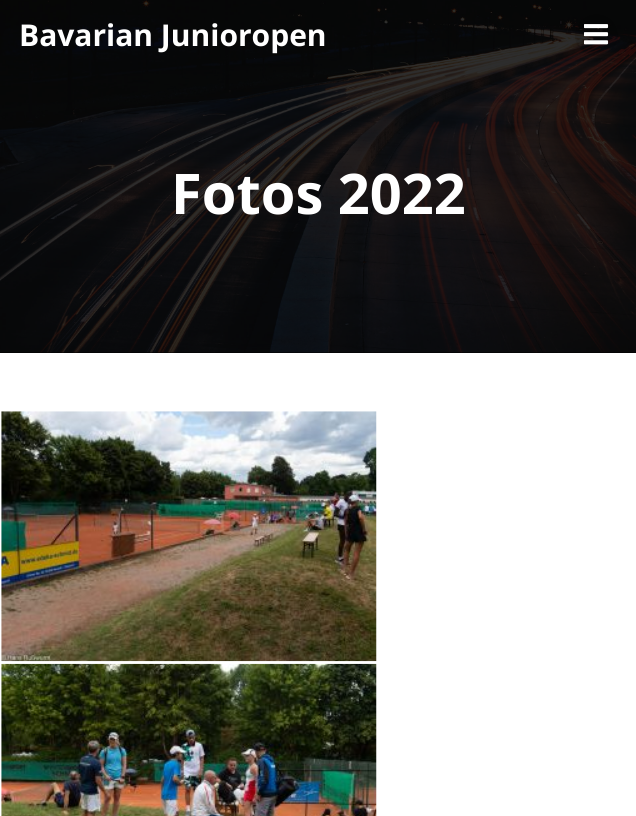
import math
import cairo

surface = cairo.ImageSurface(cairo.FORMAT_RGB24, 636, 816)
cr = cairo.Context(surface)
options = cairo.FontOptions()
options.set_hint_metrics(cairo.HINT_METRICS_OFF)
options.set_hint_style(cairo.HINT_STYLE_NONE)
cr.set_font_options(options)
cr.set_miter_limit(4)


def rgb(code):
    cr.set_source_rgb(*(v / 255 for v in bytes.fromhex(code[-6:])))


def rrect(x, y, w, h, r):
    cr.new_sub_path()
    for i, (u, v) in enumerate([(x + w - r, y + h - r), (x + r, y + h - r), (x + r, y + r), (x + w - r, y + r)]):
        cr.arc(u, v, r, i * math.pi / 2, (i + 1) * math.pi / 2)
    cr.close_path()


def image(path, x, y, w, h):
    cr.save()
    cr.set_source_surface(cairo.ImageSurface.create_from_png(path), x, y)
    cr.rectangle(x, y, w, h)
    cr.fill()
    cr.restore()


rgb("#ffffff")
cr.paint()
rgb("#000000")
cr.rectangle(0, 352, 636, 1)
cr.fill()
image("img/2.png", 0, 0, 636, 353)
cr.set_source_rgba(0, 0, 0, 0.1)
rrect(575, 14, 43, 42, 21)
cr.fill()
image("img/1.png", 584, 24, 25, 21)
image("img/3.png", 1, 411, 376, 251)
image("img/4.png", 1, 663, 376, 153)
cr.select_font_face("Open Sans", cairo.FONT_SLANT_NORMAL, cairo.FONT_WEIGHT_BOLD)
cr.set_font_size(30)
rgb("#ffffff")
cr.move_to(19, 46)
cr.show_text("Bavarian Junioropen")
cr.set_font_size(56)
cr.move_to(171, 214)
cr.show_text("Fotos 2022")
surface.write_to_png("page.png")
